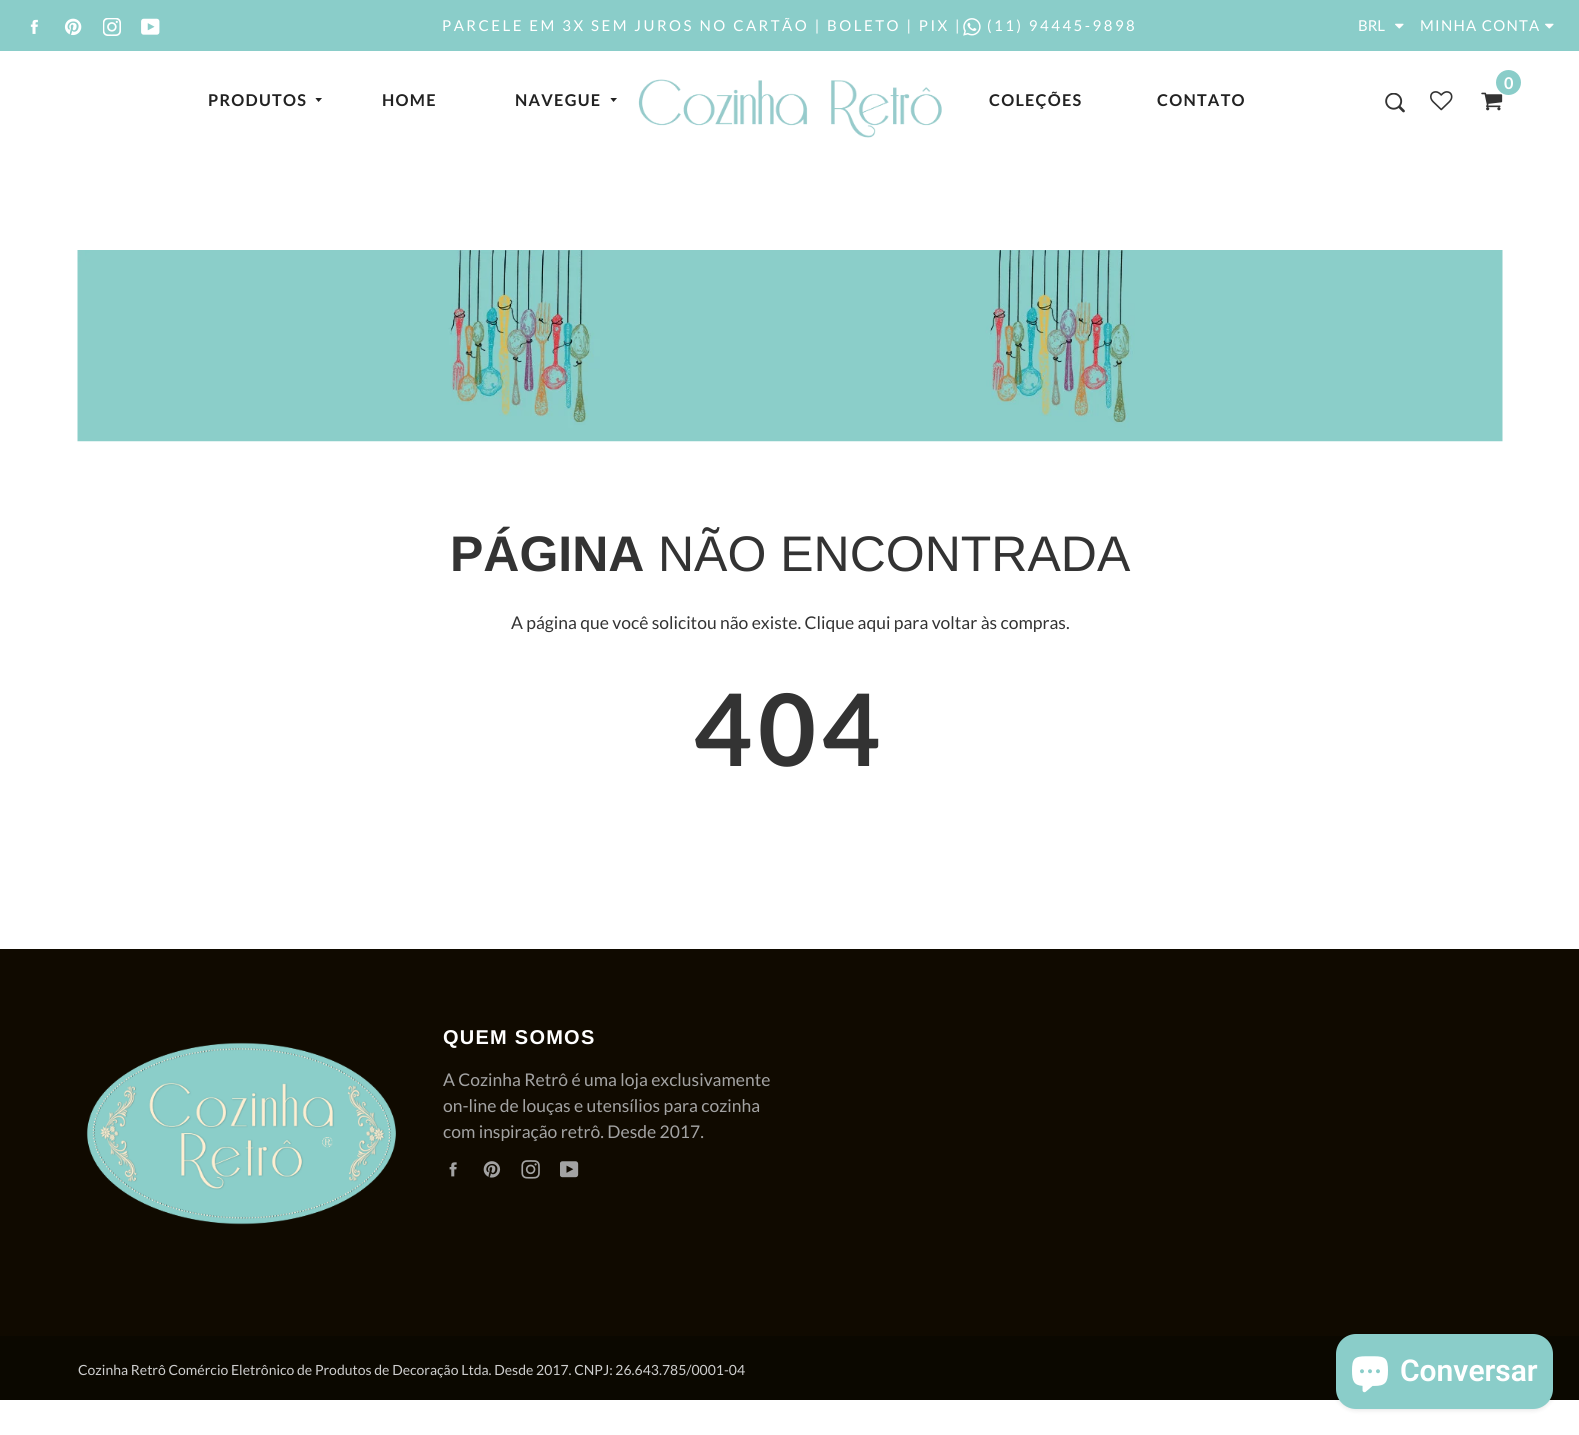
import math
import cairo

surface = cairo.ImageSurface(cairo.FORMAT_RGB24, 1579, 1435)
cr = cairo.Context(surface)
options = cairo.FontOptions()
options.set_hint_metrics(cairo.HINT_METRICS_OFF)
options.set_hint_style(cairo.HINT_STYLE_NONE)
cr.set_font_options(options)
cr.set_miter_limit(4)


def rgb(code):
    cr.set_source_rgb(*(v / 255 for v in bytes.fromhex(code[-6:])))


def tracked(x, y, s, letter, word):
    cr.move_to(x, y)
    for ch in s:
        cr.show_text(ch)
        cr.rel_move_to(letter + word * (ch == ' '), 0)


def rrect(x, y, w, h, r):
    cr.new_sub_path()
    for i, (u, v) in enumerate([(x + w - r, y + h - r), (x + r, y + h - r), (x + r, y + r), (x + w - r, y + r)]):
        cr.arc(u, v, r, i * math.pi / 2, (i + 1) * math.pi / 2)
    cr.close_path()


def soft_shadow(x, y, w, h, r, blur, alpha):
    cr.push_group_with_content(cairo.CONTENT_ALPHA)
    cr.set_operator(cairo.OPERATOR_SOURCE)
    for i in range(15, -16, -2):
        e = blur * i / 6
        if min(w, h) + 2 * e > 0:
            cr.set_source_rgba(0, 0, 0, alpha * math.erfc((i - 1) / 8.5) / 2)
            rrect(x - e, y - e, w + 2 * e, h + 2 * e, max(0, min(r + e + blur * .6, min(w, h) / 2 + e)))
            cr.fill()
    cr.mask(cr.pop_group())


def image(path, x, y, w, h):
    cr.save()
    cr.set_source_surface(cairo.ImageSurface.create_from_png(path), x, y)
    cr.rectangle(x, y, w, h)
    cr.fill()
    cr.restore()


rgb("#ffffff")
cr.paint()
rgb("#8acdc9")
cr.rectangle(0, 0, 1579, 51)
cr.fill()
image("img/1.png", 30, 19, 8, 15)
image("img/2.png", 64, 18, 18, 18)
image("img/3.png", 103, 18, 18, 18)
image("img/4.png", 141, 18, 19, 17)
image("img/5.png", 963, 18, 18, 18)
image("img/6.png", 1395, 23, 9, 6)
image("img/6.png", 1545, 23, 9, 6)
image("img/7.png", 638, 79, 304, 59)
image("img/8.png", 1481, 92, 22, 19)
cr.arc(1508.5, 82.5, 12.5, 0, 2 * math.pi)
cr.fill()
image("img/9.png", 1385, 93, 20, 20)
image("img/10.png", 1430, 91, 23, 20)
cr.save()
cr.rectangle(313, 98, 12, 5)
cr.clip()
rgb("#222222")
cr.set_fill_rule(cairo.FILL_RULE_EVEN_ODD)
cr.new_path()
cr.move_to(318.5, 102)
cr.line_to(322.5, 97.5)
cr.line_to(315, 97.5)
cr.close_path()
cr.fill()
cr.restore()
cr.save()
cr.rectangle(608, 98, 12, 5)
cr.clip()
rgb("#222222")
cr.set_fill_rule(cairo.FILL_RULE_EVEN_ODD)
cr.new_path()
cr.move_to(613.5, 102)
cr.line_to(617.5, 97.5)
cr.line_to(610, 97.5)
cr.close_path()
cr.fill()
cr.restore()
image("img/11.png", 77, 250, 1426, 192)
rgb("#100a00")
cr.rectangle(0, 949, 1579, 387)
cr.fill()
image("img/12.png", 86, 1042, 310, 183)
image("img/13.png", 449, 1162, 8, 15)
image("img/14.png", 483, 1161, 18, 17)
image("img/15.png", 521, 1160, 19, 19)
image("img/16.png", 560, 1161, 19, 17)
rgb("#0b0800")
cr.rectangle(0, 1336, 1579, 64)
cr.fill()
rgb("#000000")
soft_shadow(1336, 1334, 217, 75, 20, 3, 0.15)
rgb("#8acdc9")
rrect(1336, 1334, 217, 75, 20)
cr.fill()
image("img/17.png", 1352, 1356, 36, 37)
cr.select_font_face("Lato")
cr.set_font_size(15)
rgb("#ffffff")
tracked(442, 31, "PARCELE EM 3X SEM JUROS NO CARTÃO | BOLETO | PIX |", 2.5, 0)
tracked(987, 31, "(11) 94445-9898", 2.5, 0)
cr.move_to(1358, 31)
cr.show_text("BRL")
tracked(1420, 31, "MINHA CONTA", 1.25, 0)
cr.select_font_face("Lato", cairo.FONT_SLANT_NORMAL, cairo.FONT_WEIGHT_BOLD)
cr.set_font_size(16.25)
cr.move_to(1504, 89)
cr.show_text("0")
rgb("#222222")
for x, y, s in [
    (208, 106, "PRODUTOS"),
    (382, 106, "HOME"),
    (515, 106, "NAVEGUE"),
    (989, 106, "COLEÇÕES"),
    (1157, 106, "CONTATO"),
]:
    tracked(x, y, s, 1.25, 0)
cr.select_font_face("Liberation Sans", cairo.FONT_SLANT_NORMAL, cairo.FONT_WEIGHT_BOLD)
cr.set_font_size(50)
rgb("#333333")
cr.move_to(450, 571)
cr.show_text("PÁGINA")
cr.select_font_face("Liberation Sans")
cr.move_to(658, 571)
cr.show_text("NÃO ENCONTRADA")
cr.select_font_face("Lato")
cr.set_font_size(17.5)
cr.move_to(511, 629)
cr.show_text("A página que você solicitou não existe. Clique aqui para voltar às compras.")
cr.select_font_face("Lato", cairo.FONT_SLANT_NORMAL, cairo.FONT_WEIGHT_BOLD)
cr.set_font_size(100)
tracked(694, 766, "404", 6, 0)
cr.select_font_face("Liberation Sans", cairo.FONT_SLANT_NORMAL, cairo.FONT_WEIGHT_BOLD)
cr.set_font_size(20)
rgb("#ffffff")
tracked(443, 1044, "QUEM SOMOS", 1.25, 0)
cr.select_font_face("Lato")
cr.set_font_size(17.5)
rgb("#a3a3a3")
for x, y, s in [
    (443, 1086, "A Cozinha Retrô é uma loja exclusivamente"),
    (443, 1112, "on-line de louças e utensílios para cozinha"),
    (443, 1138, "com inspiração retrô. Desde 2017."),
]:
    cr.move_to(x, y)
    cr.show_text(s)
cr.set_font_size(14)
rgb("#cecece")
cr.move_to(78, 1375)
cr.show_text("Cozinha Retrô Comércio Eletrônico de Produtos de Decoração Ltda. Desde 2017. CNPJ: 26.643.785/0001-04")
cr.select_font_face("Roboto SemiBold")
cr.set_font_size(30)
rgb("#ffffff")
cr.move_to(1400, 1381)
cr.show_text("Conversar")
surface.write_to_png("page.png")
